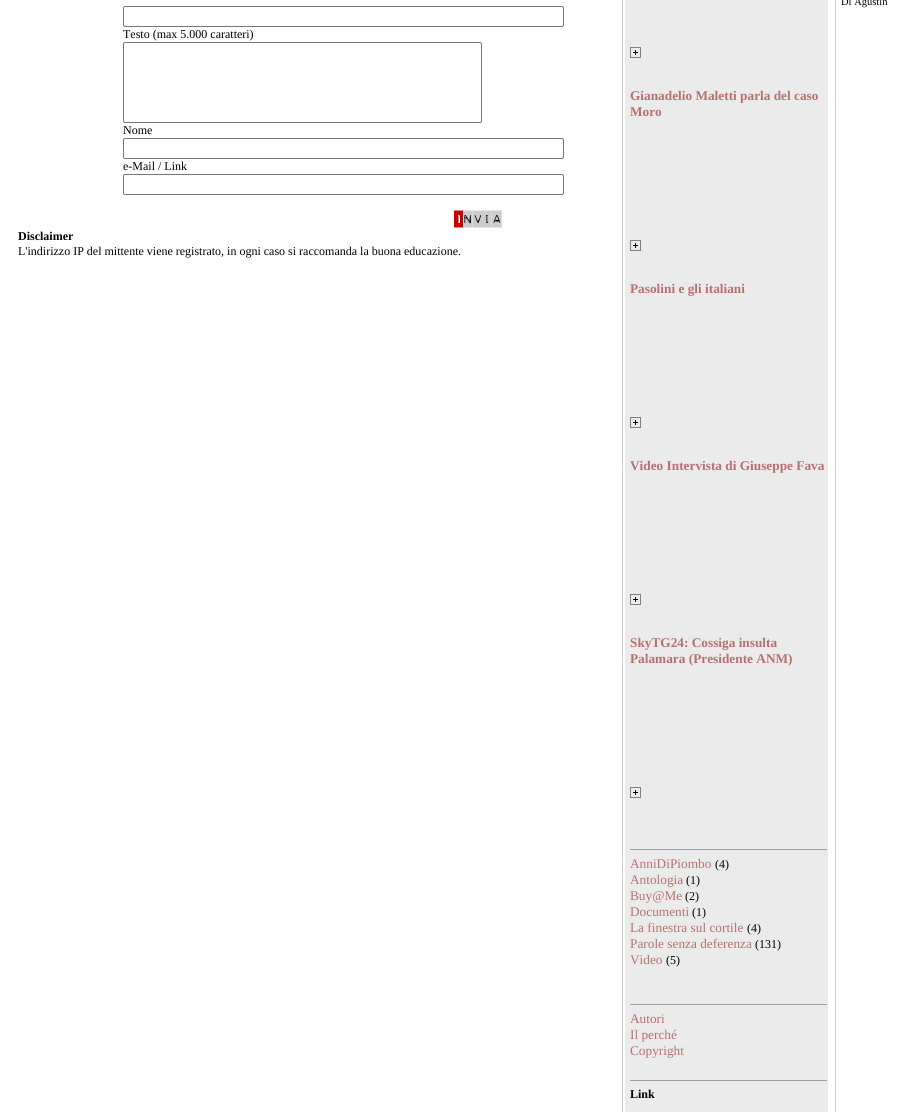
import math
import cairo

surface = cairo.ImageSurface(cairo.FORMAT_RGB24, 900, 1112)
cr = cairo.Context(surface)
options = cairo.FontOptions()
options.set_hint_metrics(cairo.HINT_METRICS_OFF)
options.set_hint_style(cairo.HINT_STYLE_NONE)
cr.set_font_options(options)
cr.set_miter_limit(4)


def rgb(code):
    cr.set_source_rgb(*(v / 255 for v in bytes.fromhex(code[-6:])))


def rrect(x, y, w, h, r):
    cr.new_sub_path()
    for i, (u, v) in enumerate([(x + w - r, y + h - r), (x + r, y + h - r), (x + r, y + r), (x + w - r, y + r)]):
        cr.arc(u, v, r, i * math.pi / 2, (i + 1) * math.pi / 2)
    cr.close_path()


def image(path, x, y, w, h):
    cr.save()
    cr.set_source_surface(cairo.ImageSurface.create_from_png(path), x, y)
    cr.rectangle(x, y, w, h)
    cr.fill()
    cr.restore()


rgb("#ffffff")
cr.paint()
rgb("#cccccc")
cr.rectangle(622, 0, 1, 1112)
cr.fill()
cr.rectangle(835, 0, 1, 1112)
cr.fill()
rrect(123.5, 6.5, 440, 20, 1.5)
rgb("#767676")
cr.set_line_width(1)
cr.stroke()
rrect(123.5, 42.5, 358, 80, 1.5)
cr.stroke()
rrect(123.5, 138.5, 440, 20, 1.5)
cr.stroke()
rrect(123.5, 174.5, 440, 20, 1.5)
cr.stroke()
image("img/1.png", 454, 210, 48, 18)
rgb("#ebebeb")
cr.rectangle(625, 0, 203, 1112)
cr.fill()
image("img/2.png", 630, 47, 11, 11)
image("img/2.png", 630, 240, 11, 11)
image("img/2.png", 630, 417, 11, 11)
image("img/2.png", 630, 594, 11, 11)
image("img/2.png", 630, 787, 11, 11)
for x, y, w, h, color in [
    (630, 849, 198, 1, "#9f9f9f"),
    (827, 849, 1, 1, "#eeeeee"),
    (630, 1004, 198, 1, "#9f9f9f"),
    (827, 1004, 1, 1, "#eeeeee"),
    (630, 1080, 198, 1, "#9f9f9f"),
    (827, 1080, 1, 1, "#eeeeee"),
]:
    rgb(color)
    cr.rectangle(x, y, w, h)
    cr.fill()
cr.select_font_face("Liberation Serif")
cr.set_font_size(10.5)
rgb("#000000")
cr.move_to(841, 5)
cr.show_text("Di Agustin")
cr.set_font_size(12)
for x, y, s in [
    (123, 38, "Testo (max 5.000 caratteri)"),
    (123, 134, "Nome"),
    (123, 170, "e-Mail / Link"),
]:
    cr.move_to(x, y)
    cr.show_text(s)
cr.select_font_face("Liberation Serif", cairo.FONT_SLANT_NORMAL, cairo.FONT_WEIGHT_BOLD)
cr.move_to(18, 240)
cr.show_text("Disclaimer")
cr.select_font_face("Liberation Serif")
cr.move_to(18, 255)
cr.show_text("L'indirizzo IP del mittente viene registrato, in ogni caso si raccomanda la buona educazione.")
cr.select_font_face("Liberation Serif", cairo.FONT_SLANT_NORMAL, cairo.FONT_WEIGHT_BOLD)
cr.set_font_size(13.3)
rgb("#b76f6f")
for x, y, s in [
    (630, 100, "Gianadelio Maletti parla del caso"),
    (630, 116, "Moro"),
    (630, 293, "Pasolini e gli italiani"),
    (630, 470, "Video Intervista di Giuseppe Fava"),
    (630, 647, "SkyTG24: Cossiga insulta"),
    (630, 663, "Palamara (Presidente ANM)"),
]:
    cr.move_to(x, y)
    cr.show_text(s)
cr.select_font_face("Liberation Serif")
cr.move_to(630, 868)
cr.show_text("AnniDiPiombo")
cr.set_font_size(12)
rgb("#000000")
cr.move_to(715, 868)
cr.show_text("(4)")
cr.set_font_size(13.3)
rgb("#b76f6f")
cr.move_to(630, 884)
cr.show_text("Antologia")
cr.set_font_size(12)
rgb("#000000")
cr.move_to(686, 884)
cr.show_text("(1)")
cr.set_font_size(13.3)
rgb("#b76f6f")
cr.move_to(630, 900)
cr.show_text("Buy@Me")
cr.set_font_size(12)
rgb("#000000")
cr.move_to(685, 900)
cr.show_text("(2)")
cr.set_font_size(13.3)
rgb("#b76f6f")
cr.move_to(630, 916)
cr.show_text("Documenti")
cr.set_font_size(12)
rgb("#000000")
cr.move_to(692, 916)
cr.show_text("(1)")
cr.set_font_size(13.3)
rgb("#b76f6f")
cr.move_to(630, 932)
cr.show_text("La finestra sul cortile")
cr.set_font_size(12)
rgb("#000000")
cr.move_to(747, 932)
cr.show_text("(4)")
cr.set_font_size(13.3)
rgb("#b76f6f")
cr.move_to(630, 948)
cr.show_text("Parole senza deferenza")
cr.set_font_size(12)
rgb("#000000")
cr.move_to(755, 948)
cr.show_text("(131)")
cr.set_font_size(13.3)
rgb("#b76f6f")
cr.move_to(630, 964)
cr.show_text("Video")
cr.set_font_size(12)
rgb("#000000")
cr.move_to(666, 964)
cr.show_text("(5)")
cr.set_font_size(13.3)
rgb("#b76f6f")
for x, y, s in [
    (630, 1023, "Autori"),
    (630, 1039, "Il perché"),
    (630, 1055, "Copyright"),
]:
    cr.move_to(x, y)
    cr.show_text(s)
cr.select_font_face("Liberation Serif", cairo.FONT_SLANT_NORMAL, cairo.FONT_WEIGHT_BOLD)
cr.set_font_size(12)
rgb("#000000")
cr.move_to(630, 1098)
cr.show_text("Link")
surface.write_to_png("page.png")
